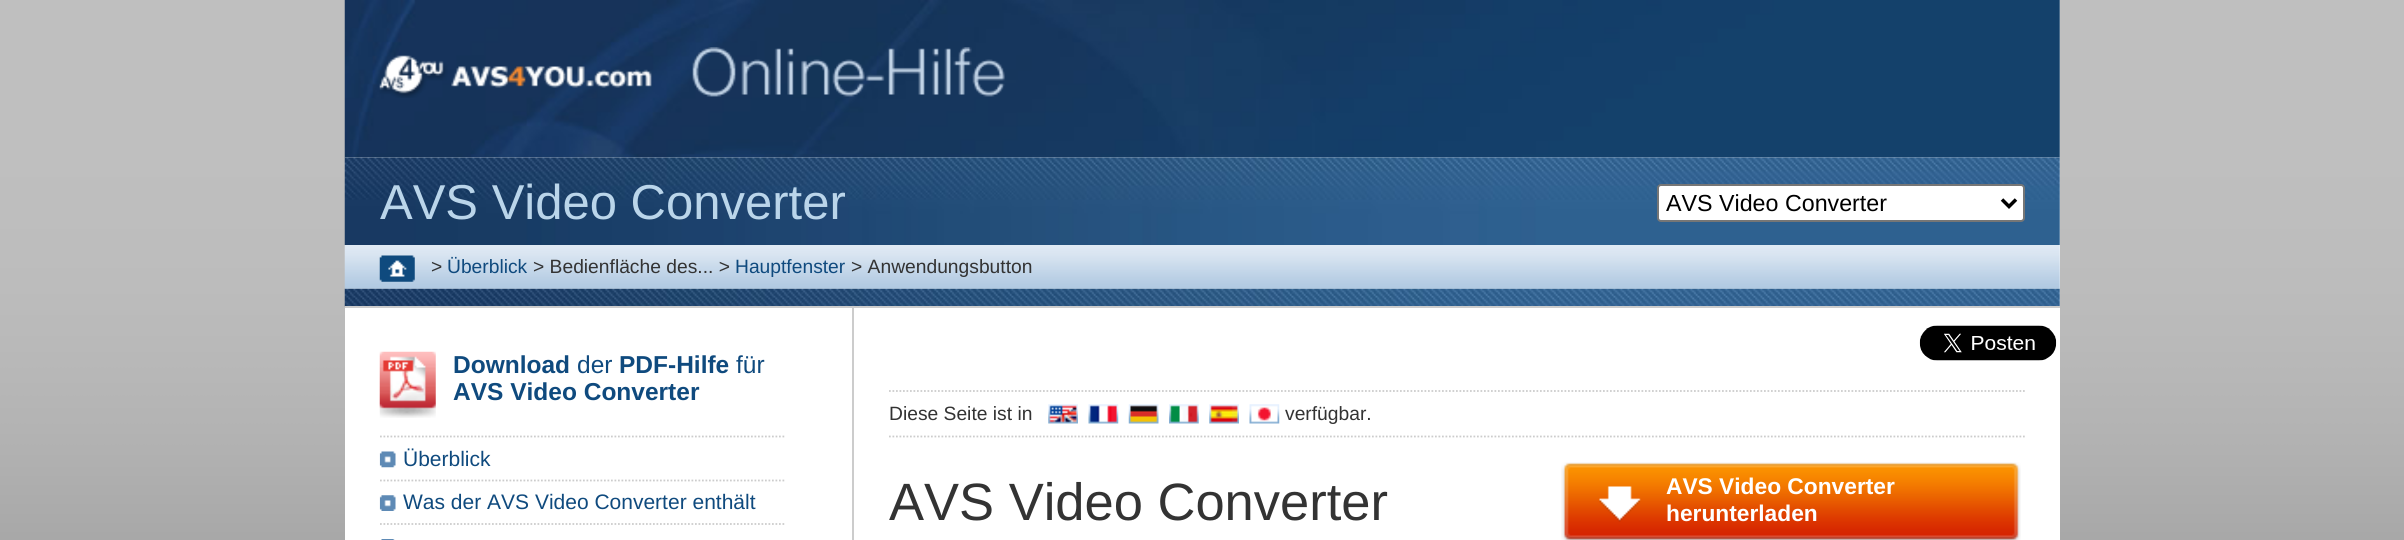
import math
import cairo

surface = cairo.ImageSurface(cairo.FORMAT_RGB24, 2404, 540)
cr = cairo.Context(surface)
options = cairo.FontOptions()
options.set_hint_metrics(cairo.HINT_METRICS_OFF)
options.set_hint_style(cairo.HINT_STYLE_NONE)
cr.set_font_options(options)
cr.set_miter_limit(4)


def rgb(code):
    cr.set_source_rgb(*(v / 255 for v in bytes.fromhex(code[-6:])))


def rrect(x, y, w, h, r):
    cr.new_sub_path()
    for i, (u, v) in enumerate([(x + w - r, y + h - r), (x + r, y + h - r), (x + r, y + r), (x + w - r, y + r)]):
        cr.arc(u, v, r, i * math.pi / 2, (i + 1) * math.pi / 2)
    cr.close_path()


def image(path, x, y, w, h):
    cr.save()
    cr.set_source_surface(cairo.ImageSurface.create_from_png(path), x, y)
    cr.rectangle(x, y, w, h)
    cr.fill()
    cr.restore()


rgb("#ffffff")
cr.paint()
image("img/1.png", 0, 0, 2404, 540)
rgb("#ffffff")
cr.rectangle(345, 0, 1715, 306)
cr.fill()
image("img/2.png", 344, 0, 1716, 158)
image("img/3.png", 379, 55, 273, 43)
image("img/4.png", 692, 47, 313, 50)
image("img/5.png", 344, 157, 1716, 88)
rrect(1658, 185, 366, 36, 3)
cr.fill_preserve()
rgb("#767676")
cr.stroke()
cr.new_path()
cr.move_to(2002, 199.5)
cr.line_to(2009, 206.5)
cr.line_to(2016, 199.5)
rgb("#000000")
cr.set_line_width(3.5)
cr.stroke()
image("img/6.png", 344, 245, 1716, 44)
image("img/7.png", 379, 255, 36, 27)
image("img/8.png", 344, 288, 1716, 19)
for x, y, w, h, color in [
    (345, 308, 507, 232, "#ffffff"),
    (345, 306, 1715, 2, "#cccccc"),
    (852, 306, 2, 234, "#cccccc"),
]:
    rgb(color)
    cr.rectangle(x, y, w, h)
    cr.fill()
image("img/9.png", 379, 351, 57, 67)
cr.new_path()
cr.move_to(380, 436.5)
cr.line_to(786, 436.5)
cr.set_line_width(1.8)
cr.set_dash([1.75, 1.75])
cr.stroke()
cr.new_path()
cr.move_to(380, 480.5)
cr.line_to(786, 480.5)
cr.stroke()
image("img/10.png", 379, 451, 17, 17)
cr.new_path()
cr.move_to(380, 524)
cr.line_to(786, 524)
cr.stroke()
image("img/11.png", 379, 495, 17, 16)
image("img/12.png", 381, 539, 14, 1)
rgb("#ffffff")
cr.rectangle(854, 308, 1206, 232)
cr.fill()
cr.new_path()
cr.move_to(889, 391)
cr.line_to(2026.5, 391)
rgb("#cccccc")
cr.stroke()
image("img/13.png", 1919, 325, 138, 36)
image("img/14.png", 1048, 404, 30, 20)
image("img/15.png", 1088, 404, 31, 20)
image("img/16.png", 1128, 404, 31, 20)
image("img/17.png", 1169, 404, 30, 20)
image("img/18.png", 1209, 404, 30, 20)
image("img/19.png", 1249, 404, 31, 20)
cr.new_path()
cr.move_to(889, 436.5)
cr.line_to(2026.5, 436.5)
cr.stroke()
image("img/20.png", 1561, 462, 460, 78)
cr.select_font_face("Liberation Sans")
cr.set_font_size(49)
rgb("#bad5ea")
cr.move_to(380, 219)
cr.show_text("AVS Video Converter")
cr.set_font_size(23.25)
rgb("#000000")
cr.move_to(1666, 211)
cr.show_text("AVS Video Converter")
cr.set_font_size(19.25)
rgb("#333333")
cr.move_to(431, 273)
cr.show_text(">")
rgb("#0f4a7e")
cr.move_to(447, 273)
cr.show_text("Überblick")
rgb("#333333")
cr.move_to(533, 273)
cr.show_text("> Bedienfläche des... >")
rgb("#0f4a7e")
cr.move_to(735, 273)
cr.show_text("Hauptfenster")
rgb("#333333")
cr.move_to(851, 273)
cr.show_text("> Anwendungsbutton")
cr.select_font_face("Liberation Sans", cairo.FONT_SLANT_NORMAL, cairo.FONT_WEIGHT_BOLD)
cr.set_font_size(24.5)
rgb("#0f4a7e")
cr.move_to(453, 373)
cr.show_text("Download")
cr.select_font_face("Liberation Sans")
cr.move_to(577, 373)
cr.show_text("der")
cr.select_font_face("Liberation Sans", cairo.FONT_SLANT_NORMAL, cairo.FONT_WEIGHT_BOLD)
cr.move_to(619, 373)
cr.show_text("PDF-Hilfe")
cr.select_font_face("Liberation Sans")
cr.move_to(736, 373)
cr.show_text("für")
cr.select_font_face("Liberation Sans", cairo.FONT_SLANT_NORMAL, cairo.FONT_WEIGHT_BOLD)
cr.move_to(453, 400)
cr.show_text("AVS Video Converter")
cr.select_font_face("Liberation Sans")
cr.set_font_size(21)
cr.move_to(403, 466)
cr.show_text("Überblick")
cr.move_to(403, 509)
cr.show_text("Was der AVS Video Converter enthält")
cr.set_font_size(19.25)
rgb("#333333")
cr.move_to(889, 420)
cr.show_text("Diese Seite ist in")
cr.move_to(1285, 420)
cr.show_text("verfügbar.")
cr.set_font_size(52.5)
cr.move_to(889, 520)
cr.show_text("AVS Video Converter")
cr.select_font_face("Liberation Sans", cairo.FONT_SLANT_NORMAL, cairo.FONT_WEIGHT_BOLD)
cr.set_font_size(22.75)
rgb("#ffffff")
cr.move_to(1666, 494)
cr.show_text("AVS Video Converter")
cr.move_to(1666, 521)
cr.show_text("herunterladen")
surface.write_to_png("page.png")
